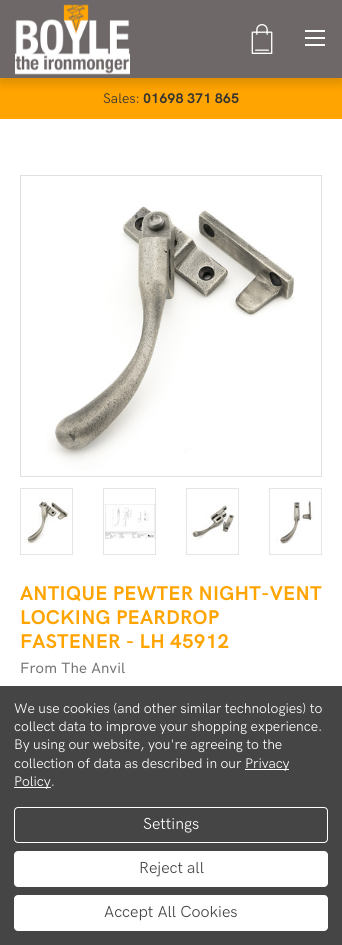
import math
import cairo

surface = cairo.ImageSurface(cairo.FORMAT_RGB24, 342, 945)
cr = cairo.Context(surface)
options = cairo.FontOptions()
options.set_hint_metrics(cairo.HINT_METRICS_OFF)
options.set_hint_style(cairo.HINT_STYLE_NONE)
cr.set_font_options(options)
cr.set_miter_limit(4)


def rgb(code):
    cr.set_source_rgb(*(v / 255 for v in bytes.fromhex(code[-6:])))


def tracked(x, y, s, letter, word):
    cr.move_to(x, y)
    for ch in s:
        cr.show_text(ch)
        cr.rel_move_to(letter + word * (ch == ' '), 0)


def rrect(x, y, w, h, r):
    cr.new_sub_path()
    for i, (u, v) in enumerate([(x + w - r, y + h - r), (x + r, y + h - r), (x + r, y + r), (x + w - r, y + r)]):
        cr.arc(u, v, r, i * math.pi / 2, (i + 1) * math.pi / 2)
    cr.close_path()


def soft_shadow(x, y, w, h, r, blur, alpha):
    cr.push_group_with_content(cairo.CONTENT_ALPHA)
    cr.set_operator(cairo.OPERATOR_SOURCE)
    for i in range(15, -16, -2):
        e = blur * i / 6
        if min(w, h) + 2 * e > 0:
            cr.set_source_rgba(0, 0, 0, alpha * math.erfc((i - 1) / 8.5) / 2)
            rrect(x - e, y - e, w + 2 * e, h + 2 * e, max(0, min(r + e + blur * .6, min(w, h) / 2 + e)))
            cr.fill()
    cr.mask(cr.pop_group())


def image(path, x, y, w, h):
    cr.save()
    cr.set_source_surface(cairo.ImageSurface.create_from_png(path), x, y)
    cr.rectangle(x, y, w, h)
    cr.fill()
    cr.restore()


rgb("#ffffff")
cr.paint()
rgb("#ffa400")
cr.rectangle(0, 78, 342, 41)
cr.fill()
rgb("#000000")
soft_shadow(0, 5, 342, 78, 0, 5, 0.15)
rgb("#6f6868")
cr.rectangle(0, 0, 342, 78)
cr.fill()
image("img/1.png", 15, 4, 115, 71)
image("img/2.png", 251, 24, 22, 30)
for x, y, w, h, color in [
    (305, 37, 20, 2, "#ffffff"),
    (305, 30, 20, 2, "#ffffff"),
    (305, 44, 20, 2, "#ffffff"),
]:
    rgb(color)
    cr.rectangle(x, y, w, h)
    cr.fill()
cr.rectangle(20.5, 175.5, 301, 301)
rgb("#dfdfdf")
cr.set_line_width(1)
cr.stroke()
image("img/3.png", 46, 206, 249, 264)
cr.rectangle(20.5, 488.5, 52, 66)
rgb("#e5e5e5")
cr.stroke()
image("img/4.png", 23, 497, 47, 48)
cr.rectangle(103.5, 488.5, 52, 66)
cr.stroke()
image("img/5.png", 105, 504, 50, 35)
cr.rectangle(186.5, 488.5, 52, 66)
cr.stroke()
image("img/6.png", 188, 502, 47, 40)
cr.rectangle(269.5, 488.5, 52, 66)
cr.stroke()
image("img/7.png", 275, 500, 40, 45)
for x, y, w, h, color in [
    (0, 686, 342, 259, "#454545"),
    (245, 769, 44, 1, "#ffffff"),
    (14, 787, 37, 1, "#ffffff"),
]:
    rgb(color)
    cr.rectangle(x, y, w, h)
    cr.fill()
rrect(14.5, 807.5, 313, 35, 3.5)
cr.stroke()
rrect(14, 851, 314, 36, 4)
cr.fill()
rrect(14, 895, 314, 36, 4)
cr.fill()
cr.select_font_face("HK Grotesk")
cr.set_font_size(14)
rgb("#333333")
cr.move_to(103, 103)
cr.show_text("Sales:")
cr.select_font_face("HK Grotesk", cairo.FONT_SLANT_NORMAL, cairo.FONT_WEIGHT_BOLD)
cr.move_to(143, 103)
cr.show_text("01698 371 865")
cr.set_font_size(20)
rgb("#ffa400")
for x, y, s in [
    (20, 600, "ANTIQUE PEWTER NIGHT-VENT"),
    (20, 624, "LOCKING PEARDROP"),
    (20, 648, "FASTENER - LH 45912"),
]:
    tracked(x, y, s, 0.25, 0)
cr.select_font_face("HK Grotesk Medium")
cr.set_font_size(15)
rgb("#757575")
tracked(20, 673, "From The Anvil", 0.25, 0)
cr.select_font_face("HK Grotesk")
cr.set_font_size(14)
rgb("#ffffff")
for x, y, s in [
    (14, 713, "We use cookies (and other similar technologies) to"),
    (14, 731, "collect data to improve your shopping experience."),
    (14, 749, "By using our website, you're agreeing to the"),
    (14, 768, "collection of data as described in our"),
    (245, 768, "Privacy"),
    (14, 786, "Policy."),
]:
    tracked(x, y, s, -0.05, 0)
cr.set_font_size(16)
cr.move_to(143, 829)
cr.show_text("Settings")
rgb("#454545")
cr.move_to(139, 873)
cr.show_text("Reject all")
cr.move_to(104, 917)
cr.show_text("Accept All Cookies")
surface.write_to_png("page.png")
